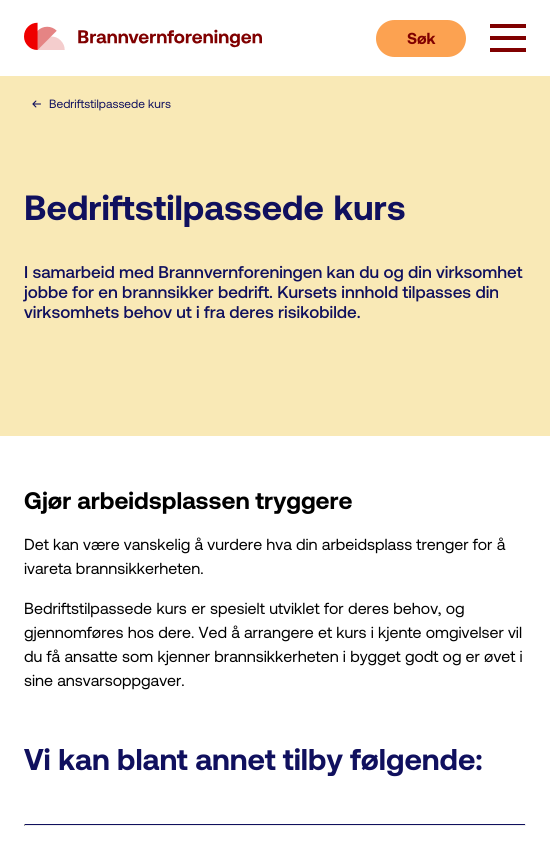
import math
import cairo

surface = cairo.ImageSurface(cairo.FORMAT_RGB24, 550, 841)
cr = cairo.Context(surface)
options = cairo.FontOptions()
options.set_hint_metrics(cairo.HINT_METRICS_OFF)
options.set_hint_style(cairo.HINT_STYLE_NONE)
cr.set_font_options(options)
cr.set_miter_limit(4)


def rgb(code):
    cr.set_source_rgb(*(v / 255 for v in bytes.fromhex(code[-6:])))


def tracked(x, y, s, letter, word):
    cr.move_to(x, y)
    for ch in s:
        cr.show_text(ch)
        cr.rel_move_to(letter + word * (ch == ' '), 0)


def rrect(x, y, w, h, r):
    cr.new_sub_path()
    for i, (u, v) in enumerate([(x + w - r, y + h - r), (x + r, y + h - r), (x + r, y + r), (x + w - r, y + r)]):
        cr.arc(u, v, r, i * math.pi / 2, (i + 1) * math.pi / 2)
    cr.close_path()


def image(path, x, y, w, h):
    cr.save()
    cr.set_source_surface(cairo.ImageSurface.create_from_png(path), x, y)
    cr.rectangle(x, y, w, h)
    cr.fill()
    cr.restore()


rgb("#ffffff")
cr.paint()
image("img/1.png", 24, 22, 238, 28)
rgb("#fca251")
rrect(376, 20, 90, 37, 18.5)
cr.fill()
for x, y, w, h, color in [
    (490, 24, 36, 4, "#800000"),
    (490, 36, 36, 4, "#800000"),
    (490, 48, 36, 4, "#800000"),
    (0, 76, 550, 360, "#f9e9b6"),
]:
    rgb(color)
    cr.rectangle(x, y, w, h)
    cr.fill()
image("img/2.png", 32, 100, 9, 8)
for x, y, w, h, color in [
    (24, 824, 502, 1, "#10105e"),
    (525, 824, 1, 2, "#eeeeee"),
    (24, 825, 502, 1, "#eeeeee"),
    (24, 824, 1, 2, "#9f9f9f"),
]:
    rgb(color)
    cr.rectangle(x, y, w, h)
    cr.fill()
cr.select_font_face("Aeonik", cairo.FONT_SLANT_NORMAL, cairo.FONT_WEIGHT_BOLD)
cr.set_font_size(16)
rgb("#800000")
cr.move_to(407, 44)
cr.show_text("Søk")
cr.select_font_face("Aeonik")
cr.set_font_size(12)
rgb("#10105e")
cr.move_to(49, 108)
cr.show_text("Bedriftstilpassede kurs")
cr.select_font_face("Aeonik", cairo.FONT_SLANT_NORMAL, cairo.FONT_WEIGHT_BOLD)
cr.set_font_size(35)
tracked(24, 220, "Bedriftstilpassede kurs", 0, 1)
cr.select_font_face("Aeonik Medium")
cr.set_font_size(17)
for x, y, s in [
    (24, 278, "I samarbeid med Brannvernforeningen kan du og din virksomhet"),
    (24, 298, "jobbe for en brannsikker bedrift. Kursets innhold tilpasses din"),
    (24, 318, "virksomhets behov ut i fra deres risikobilde."),
]:
    cr.move_to(x, y)
    cr.show_text(s)
cr.select_font_face("Aeonik", cairo.FONT_SLANT_NORMAL, cairo.FONT_WEIGHT_BOLD)
cr.set_font_size(24)
rgb("#000000")
cr.move_to(24, 509)
cr.show_text("Gjør arbeidsplassen tryggere")
cr.select_font_face("Aeonik")
cr.set_font_size(16)
cr.move_to(24, 550)
cr.show_text("Det kan være vanskelig å vurdere hva din arbeidsplass trenger for å")
cr.move_to(24, 574)
cr.show_text("ivareta brannsikkerheten.")
tracked(24, 614, "Bedriftstilpassede kurs er spesielt utviklet for deres behov, og", 0, 0.25)
for x, y, s in [
    (24, 638, "gjennomføres hos dere. Ved å arrangere et kurs i kjente omgivelser vil"),
    (24, 662, "du få ansatte som kjenner brannsikkerheten i bygget godt og er øvet i"),
    (24, 686, "sine ansvarsoppgaver."),
]:
    cr.move_to(x, y)
    cr.show_text(s)
cr.select_font_face("Aeonik", cairo.FONT_SLANT_NORMAL, cairo.FONT_WEIGHT_BOLD)
cr.set_font_size(30)
rgb("#10105e")
cr.move_to(24, 770)
cr.show_text("Vi kan blant annet tilby følgende:")
surface.write_to_png("page.png")
